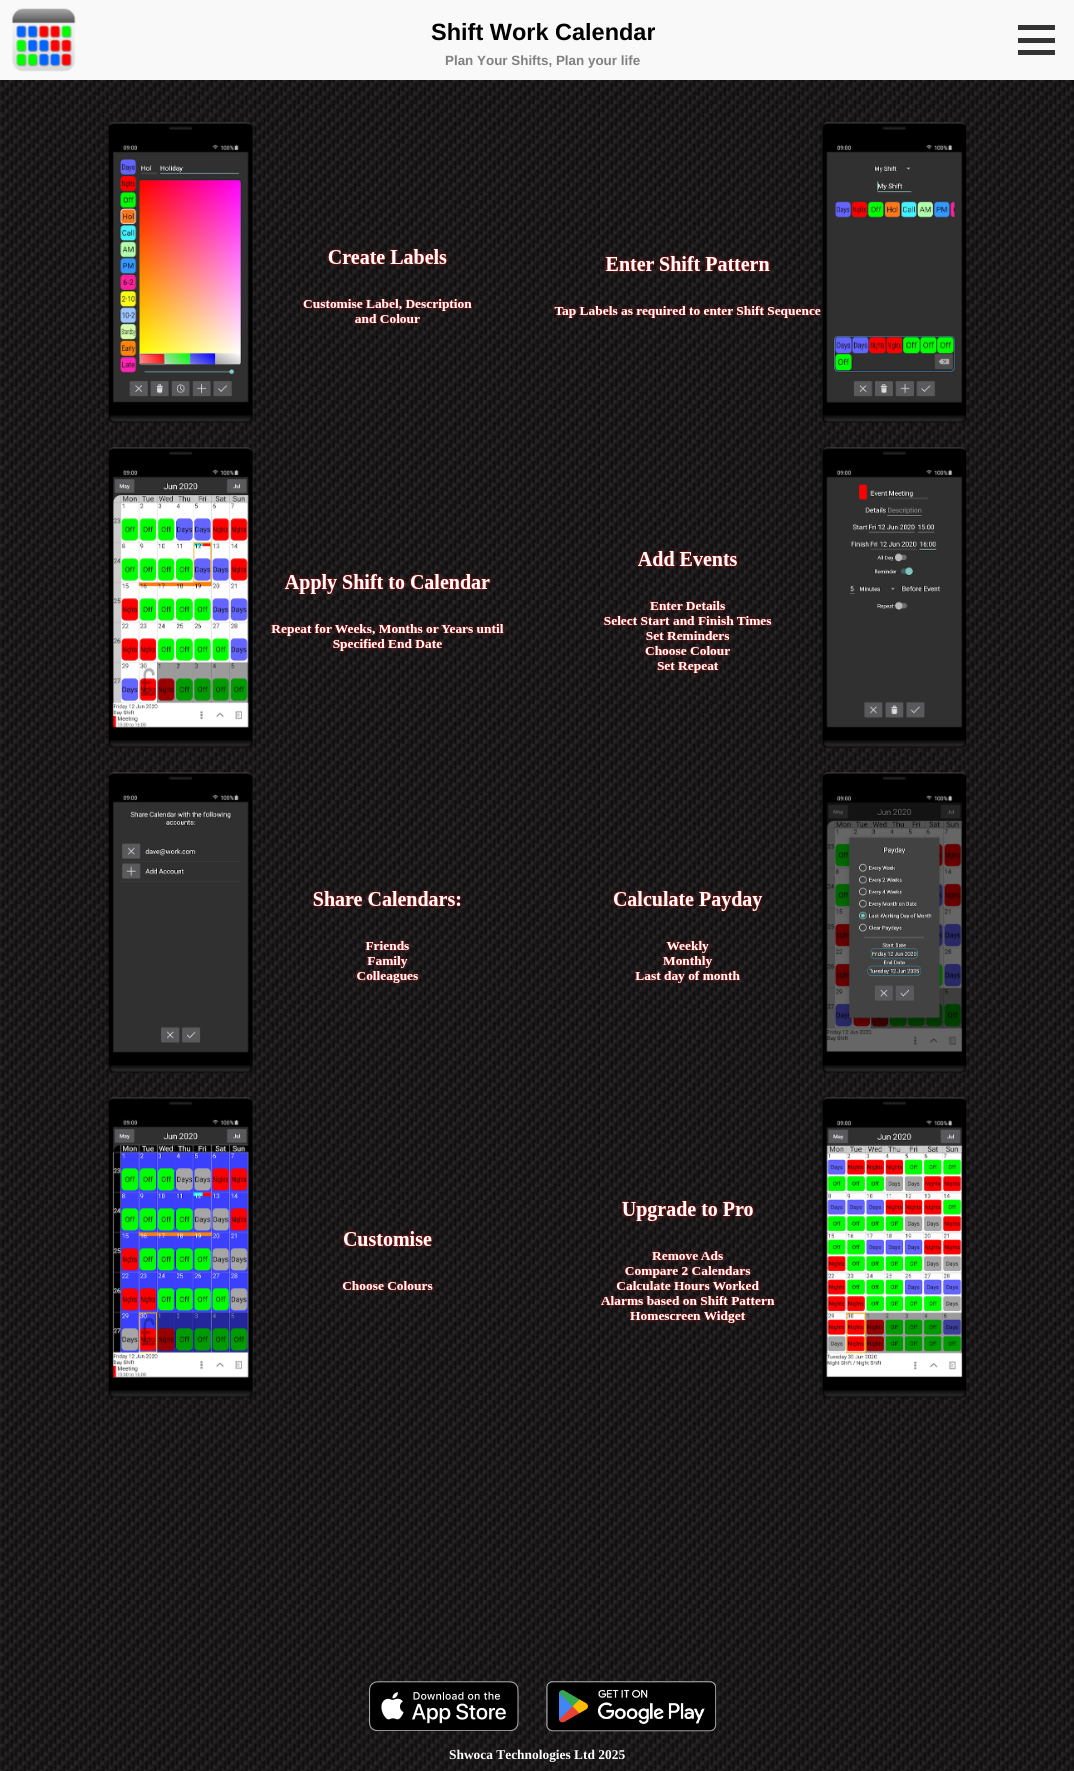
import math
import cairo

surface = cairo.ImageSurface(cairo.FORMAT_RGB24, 1074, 1771)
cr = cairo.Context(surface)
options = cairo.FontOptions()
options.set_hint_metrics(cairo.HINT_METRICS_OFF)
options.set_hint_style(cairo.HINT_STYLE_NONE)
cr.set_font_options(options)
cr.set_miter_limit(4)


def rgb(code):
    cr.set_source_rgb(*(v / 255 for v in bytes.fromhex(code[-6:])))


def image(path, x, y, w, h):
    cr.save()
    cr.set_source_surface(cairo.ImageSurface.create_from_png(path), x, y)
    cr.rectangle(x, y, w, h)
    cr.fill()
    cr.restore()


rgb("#ffffff")
cr.paint()
image("img/1.png", 0, 80, 1074, 1691)
rgb("#f9f9f9")
cr.rectangle(0, 0, 1074, 80)
cr.fill()
image("img/2.png", 12, 8, 64, 64)
for x, y, w, h, color in [
    (1018, 25, 37, 5, "#333333"),
    (1018, 38, 37, 5, "#333333"),
    (1018, 50, 37, 5, "#333333"),
]:
    rgb(color)
    cr.rectangle(x, y, w, h)
    cr.fill()
image("img/3.png", 108, 122, 859, 1276)
image("img/4.png", 369, 1681, 150, 50)
image("img/5.png", 546, 1681, 171, 51)
cr.select_font_face("Liberation Sans", cairo.FONT_SLANT_NORMAL, cairo.FONT_WEIGHT_BOLD)
cr.set_font_size(23.5)
rgb("#000000")
cr.move_to(431, 40)
cr.show_text("Shift Work Calendar")
cr.set_font_size(13.4)
rgb("#808080")
cr.move_to(445, 65)
cr.show_text("Plan Your Shifts, Plan your life")
cr.select_font_face("Liberation Serif", cairo.FONT_SLANT_NORMAL, cairo.FONT_WEIGHT_BOLD)
rgb("#ffffff")
cr.move_to(449, 1759)
cr.show_text("Shwoca Technologies Ltd 2025")
surface.write_to_png("page.png")
